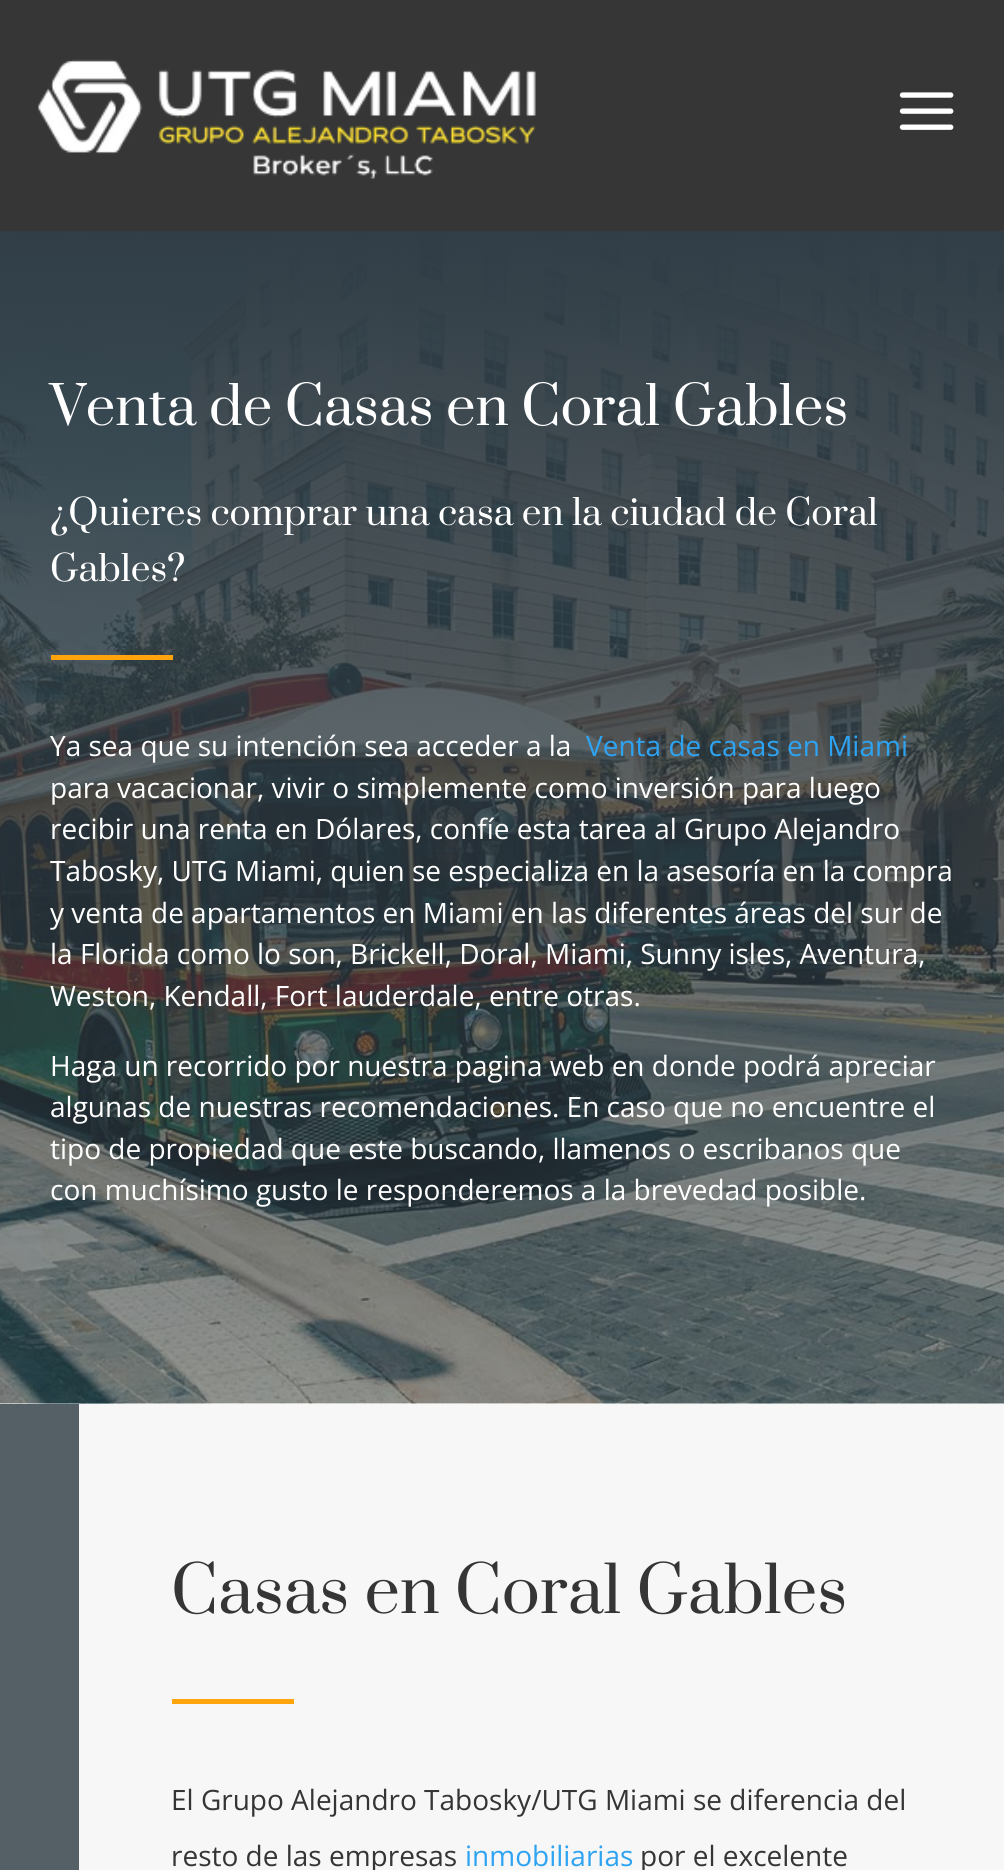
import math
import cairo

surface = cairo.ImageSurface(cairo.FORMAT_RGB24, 1004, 1870)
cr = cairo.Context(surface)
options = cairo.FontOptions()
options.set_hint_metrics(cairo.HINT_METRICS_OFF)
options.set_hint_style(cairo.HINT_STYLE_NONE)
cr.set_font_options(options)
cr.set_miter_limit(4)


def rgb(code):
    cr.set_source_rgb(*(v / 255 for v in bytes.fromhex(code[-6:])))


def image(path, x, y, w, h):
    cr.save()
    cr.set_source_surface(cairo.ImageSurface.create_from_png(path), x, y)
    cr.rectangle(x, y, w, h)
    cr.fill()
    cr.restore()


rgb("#ffffff")
cr.paint()
rgb("#363636")
cr.rectangle(0, 0, 1004, 231)
cr.fill()
image("img/1.png", 38, 59, 498, 120)
image("img/2.png", 899, 92, 55, 38)
image("img/3.png", 0, 231, 1004, 1173)
for x, y, w, h, color in [
    (51, 655, 122, 5, "#ffa40d"),
    (79, 1404, 925, 466, "#f7f7f7"),
    (0, 1404, 79, 466, "#545f66"),
    (172, 1699, 122, 5, "#ffa40d"),
]:
    rgb(color)
    cr.rectangle(x, y, w, h)
    cr.fill()
cr.select_font_face("Prata")
cr.set_font_size(52.5)
rgb("#ffffff")
cr.move_to(50, 425)
cr.show_text("Venta de Casas en Coral Gables")
cr.set_font_size(35)
cr.move_to(50, 525)
cr.show_text("¿Quieres comprar una casa en la ciudad de Coral")
cr.move_to(50, 581)
cr.show_text("Gables?")
cr.select_font_face("Open Sans")
cr.set_font_size(28)
cr.move_to(50, 756)
cr.show_text("Ya sea que su intención sea acceder a la")
rgb("#2ea3f2")
cr.move_to(586, 756)
cr.show_text("Venta de casas en Miami")
rgb("#ffffff")
for x, y, s in [
    (50, 798, "para vacacionar, vivir o simplemente como inversión para luego"),
    (50, 839, "recibir una renta en Dólares, confíe esta tarea al Grupo Alejandro"),
    (50, 881, "Tabosky, UTG Miami, quien se especializa en la asesoría en la compra"),
    (50, 923, "y venta de apartamentos en Miami en las diferentes áreas del sur de"),
    (50, 964, "la Florida como lo son, Brickell, Doral, Miami, Sunny isles, Aventura,"),
    (50, 1006, "Weston, Kendall, Fort lauderdale, entre otras."),
    (50, 1076, "Haga un recorrido por nuestra pagina web en donde podrá apreciar"),
    (50, 1117, "algunas de nuestras recomendaciones. En caso que no encuentre el"),
    (50, 1159, "tipo de propiedad que este buscando, llamenos o escribanos que"),
    (50, 1200, "con muchísimo gusto le responderemos a la brevedad posible."),
]:
    cr.move_to(x, y)
    cr.show_text(s)
cr.select_font_face("Prata")
cr.set_font_size(63)
rgb("#353535")
cr.move_to(171, 1613)
cr.show_text("Casas en Coral Gables")
cr.select_font_face("Open Sans")
cr.set_font_size(28)
cr.move_to(171, 1810)
cr.show_text("El Grupo Alejandro Tabosky/UTG Miami se diferencia del")
cr.move_to(171, 1866)
cr.show_text("resto de las empresas")
rgb("#2ea3f2")
cr.move_to(465, 1866)
cr.show_text("inmobiliarias")
rgb("#353535")
cr.move_to(640, 1866)
cr.show_text("por el excelente")
surface.write_to_png("page.png")
